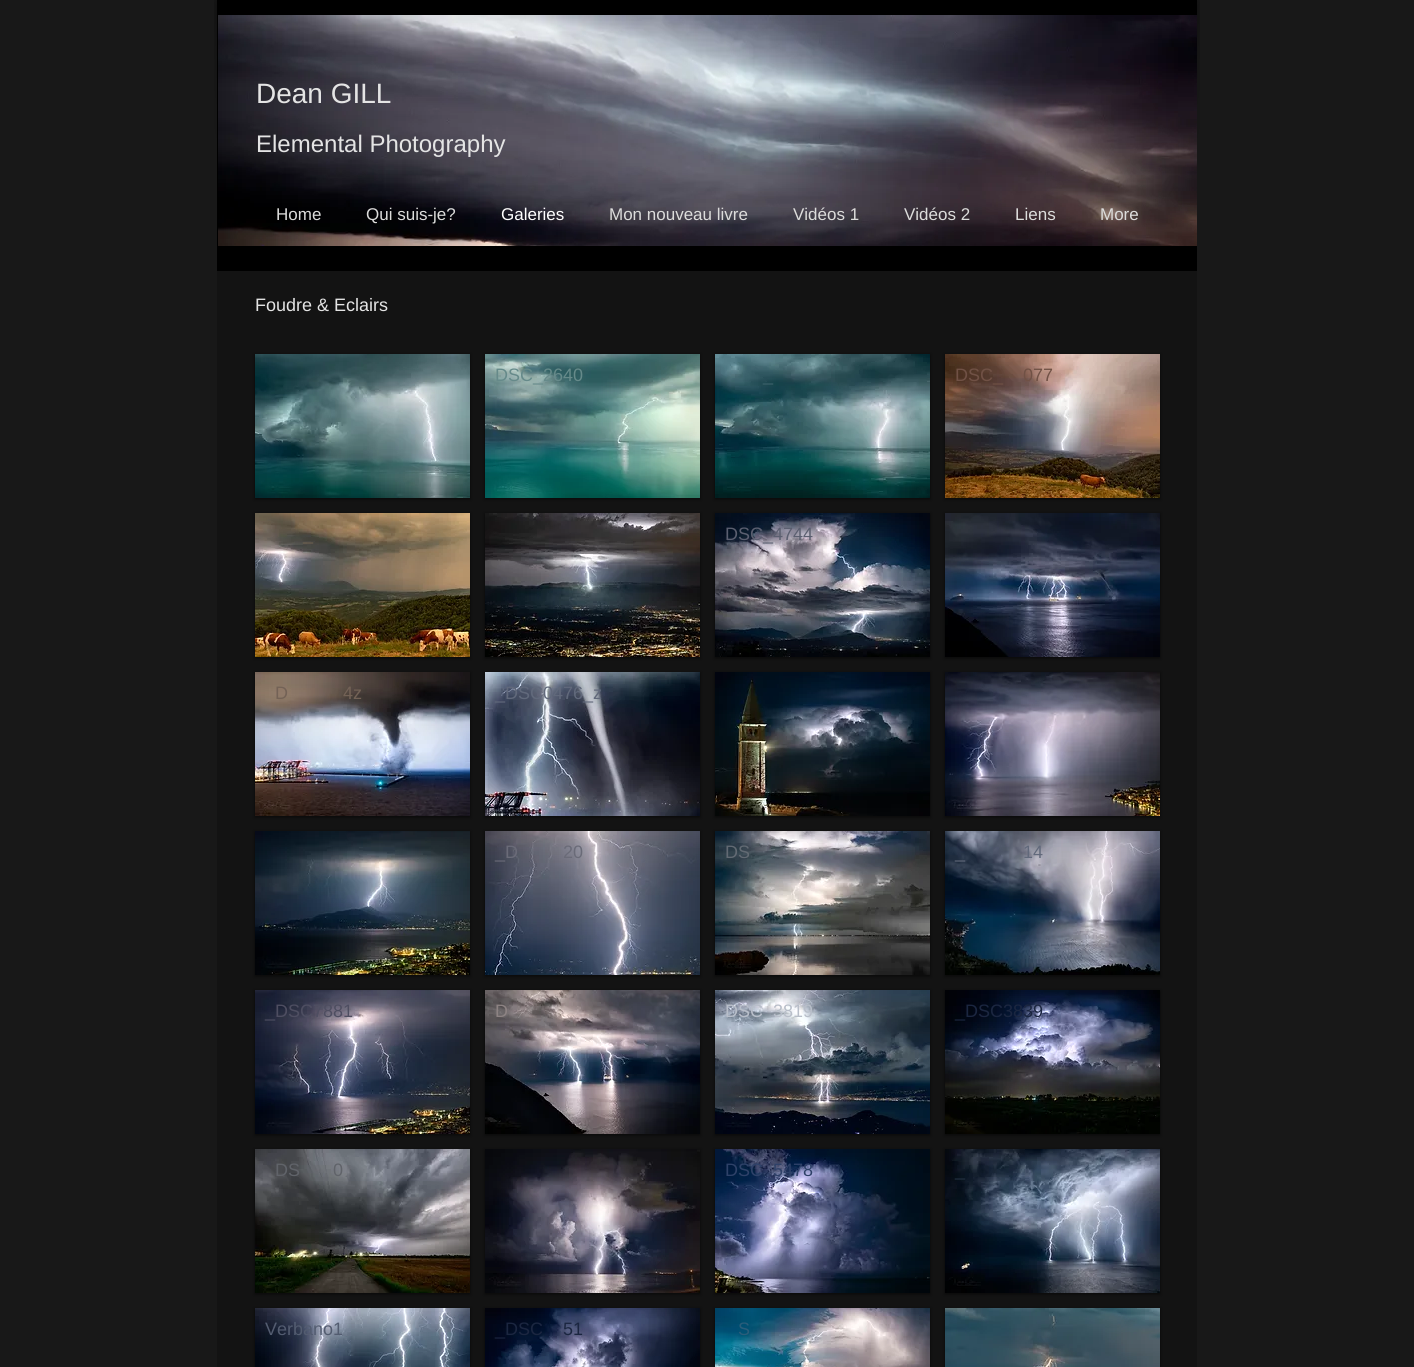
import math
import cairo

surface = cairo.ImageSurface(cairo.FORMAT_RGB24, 1414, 1367)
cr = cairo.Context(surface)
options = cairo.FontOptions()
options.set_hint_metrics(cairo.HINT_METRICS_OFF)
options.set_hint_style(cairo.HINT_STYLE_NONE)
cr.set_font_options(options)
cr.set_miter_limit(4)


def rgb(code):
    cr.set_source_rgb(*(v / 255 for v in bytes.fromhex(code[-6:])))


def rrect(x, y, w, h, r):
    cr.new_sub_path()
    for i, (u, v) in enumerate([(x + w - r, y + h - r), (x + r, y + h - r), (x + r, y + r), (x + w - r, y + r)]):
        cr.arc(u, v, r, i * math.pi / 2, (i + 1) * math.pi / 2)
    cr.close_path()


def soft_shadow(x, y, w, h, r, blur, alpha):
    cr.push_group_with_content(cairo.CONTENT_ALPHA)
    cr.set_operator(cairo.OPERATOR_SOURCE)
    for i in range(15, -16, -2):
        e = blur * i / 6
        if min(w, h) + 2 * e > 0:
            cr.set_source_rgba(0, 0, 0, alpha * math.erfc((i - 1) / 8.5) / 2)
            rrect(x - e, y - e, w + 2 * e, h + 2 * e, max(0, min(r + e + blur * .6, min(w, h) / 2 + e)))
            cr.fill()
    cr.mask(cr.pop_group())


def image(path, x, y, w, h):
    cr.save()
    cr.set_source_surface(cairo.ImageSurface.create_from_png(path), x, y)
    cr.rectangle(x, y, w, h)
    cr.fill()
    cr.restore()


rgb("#181818")
cr.paint()
image("img/1.png", 214, 0, 3, 138)
rgb("#000000")
cr.rectangle(217, 0, 980, 271)
cr.fill()
image("img/2.png", 1197, 0, 3, 138)
image("img/3.png", 218, 15, 979, 231)
rgb("#131313")
cr.rectangle(217, 271, 980, 1096)
cr.fill()
rgb("#000000")
soft_shadow(255, 355, 215, 144, 0, 2, 0.6)
image("img/4.png", 255, 354, 215, 144)
soft_shadow(485, 355, 215, 144, 0, 2, 0.6)
image("img/5.png", 485, 354, 215, 144)
soft_shadow(715, 355, 215, 144, 0, 2, 0.6)
image("img/6.png", 715, 354, 215, 144)
soft_shadow(945, 355, 215, 144, 0, 2, 0.6)
image("img/7.png", 945, 354, 215, 144)
soft_shadow(255, 514, 215, 144, 0, 2, 0.6)
image("img/8.png", 255, 513, 215, 144)
soft_shadow(485, 514, 215, 144, 0, 2, 0.6)
image("img/9.png", 485, 513, 215, 144)
soft_shadow(715, 514, 215, 144, 0, 2, 0.6)
image("img/10.png", 715, 513, 215, 144)
soft_shadow(945, 514, 215, 144, 0, 2, 0.6)
image("img/11.png", 945, 513, 215, 144)
soft_shadow(255, 673, 215, 144, 0, 2, 0.6)
image("img/12.png", 255, 672, 215, 144)
soft_shadow(485, 673, 215, 144, 0, 2, 0.6)
image("img/13.png", 485, 672, 215, 144)
soft_shadow(715, 673, 215, 144, 0, 2, 0.6)
image("img/14.png", 715, 672, 215, 144)
soft_shadow(945, 673, 215, 144, 0, 2, 0.6)
image("img/15.png", 945, 672, 215, 144)
soft_shadow(255, 832, 215, 144, 0, 2, 0.6)
image("img/16.png", 255, 831, 215, 144)
soft_shadow(485, 832, 215, 144, 0, 2, 0.6)
image("img/17.png", 485, 831, 215, 144)
soft_shadow(715, 832, 215, 144, 0, 2, 0.6)
image("img/18.png", 715, 831, 215, 144)
soft_shadow(945, 832, 215, 144, 0, 2, 0.6)
image("img/19.png", 945, 831, 215, 144)
soft_shadow(255, 991, 215, 144, 0, 2, 0.6)
image("img/20.png", 255, 990, 215, 144)
soft_shadow(485, 991, 215, 144, 0, 2, 0.6)
image("img/21.png", 485, 990, 215, 144)
soft_shadow(715, 991, 215, 144, 0, 2, 0.6)
image("img/22.png", 715, 990, 215, 144)
soft_shadow(945, 991, 215, 144, 0, 2, 0.6)
image("img/23.png", 945, 990, 215, 144)
soft_shadow(255, 1150, 215, 144, 0, 2, 0.6)
image("img/24.png", 255, 1149, 215, 144)
soft_shadow(485, 1150, 215, 144, 0, 2, 0.6)
image("img/25.png", 485, 1149, 215, 144)
soft_shadow(715, 1150, 215, 144, 0, 2, 0.6)
image("img/26.png", 715, 1149, 215, 144)
soft_shadow(945, 1150, 215, 144, 0, 2, 0.6)
image("img/27.png", 945, 1149, 215, 144)
soft_shadow(255, 1309, 215, 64, 0, 2, 0.6)
image("img/28.png", 255, 1308, 215, 59)
soft_shadow(485, 1309, 215, 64, 0, 2, 0.6)
image("img/29.png", 485, 1308, 215, 59)
soft_shadow(715, 1309, 215, 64, 0, 2, 0.6)
image("img/30.png", 715, 1308, 215, 59)
soft_shadow(945, 1309, 215, 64, 0, 2, 0.6)
image("img/31.png", 945, 1308, 215, 59)
cr.select_font_face("Liberation Sans")
cr.set_font_size(28)
rgb("#e4e4e4")
cr.move_to(256, 103)
cr.show_text("Dean GILL")
cr.set_font_size(24)
cr.move_to(256, 152)
cr.show_text("Elemental Photography")
cr.set_font_size(17)
rgb("#dcdcdb")
cr.move_to(276, 220)
cr.show_text("Home")
cr.move_to(366, 220)
cr.show_text("Qui suis-je?")
rgb("#ffffff")
cr.move_to(501, 220)
cr.show_text("Galeries")
rgb("#dcdcdb")
for x, y, s in [
    (609, 220, "Mon nouveau livre"),
    (793, 220, "Vidéos 1"),
    (904, 220, "Vidéos 2"),
    (1015, 220, "Liens"),
    (1100, 220, "More"),
]:
    cr.move_to(x, y)
    cr.show_text(s)
cr.set_font_size(18)
rgb("#e4e4e4")
cr.move_to(255, 311)
cr.show_text("Foudre & Eclairs")
rgb("#668a8a")
cr.move_to(495, 381)
cr.show_text("DSC_2640")
rgb("#3c616a")
cr.move_to(763, 381)
cr.show_text("_")
rgb("#705145")
cr.move_to(955, 381)
cr.show_text("DSC_")
cr.move_to(1023, 381)
cr.show_text("077")
rgb("#6c5f4e")
cr.move_to(303, 540)
cr.show_text("_")
rgb("#5b5f70")
cr.move_to(725, 540)
cr.show_text("DSC_4744")
rgb("#736256")
cr.move_to(275, 699)
cr.show_text("D")
cr.move_to(343, 699)
cr.show_text("4z")
rgb("#61697b")
cr.move_to(495, 699)
cr.show_text("_DSC0476_z")
rgb("#6a6b78")
cr.move_to(495, 858)
cr.show_text("_D")
cr.move_to(563, 858)
cr.show_text("20")
rgb("#626a73")
cr.move_to(725, 858)
cr.show_text("DS")
rgb("#61697b")
cr.move_to(1023, 858)
cr.show_text("14")
cr.move_to(955, 858)
cr.show_text("_")
rgb("#4e4e61")
cr.move_to(265, 1017)
cr.show_text("_DSC7881")
rgb("#8d8383")
cr.move_to(495, 1017)
cr.show_text("D")
rgb("#b8bec9")
cr.move_to(725, 1017)
cr.show_text("DSC_3819")
rgb("#1b2640")
cr.move_to(955, 1017)
cr.show_text("_DSC3839")
rgb("#606369")
cr.move_to(275, 1176)
cr.show_text("DS")
cr.move_to(333, 1176)
cr.show_text("0")
rgb("#2e4168")
cr.move_to(725, 1176)
cr.show_text("DSC_5478")
rgb("#223041")
cr.move_to(955, 1176)
cr.show_text("_")
rgb("#535c70")
cr.move_to(265, 1335)
cr.show_text("Verbano1")
rgb("#1b2640")
cr.move_to(495, 1335)
cr.show_text("_DSC")
cr.move_to(563, 1335)
cr.show_text("51")
rgb("#2a5d7a")
cr.move_to(738, 1335)
cr.show_text("S")
surface.write_to_png("page.png")
